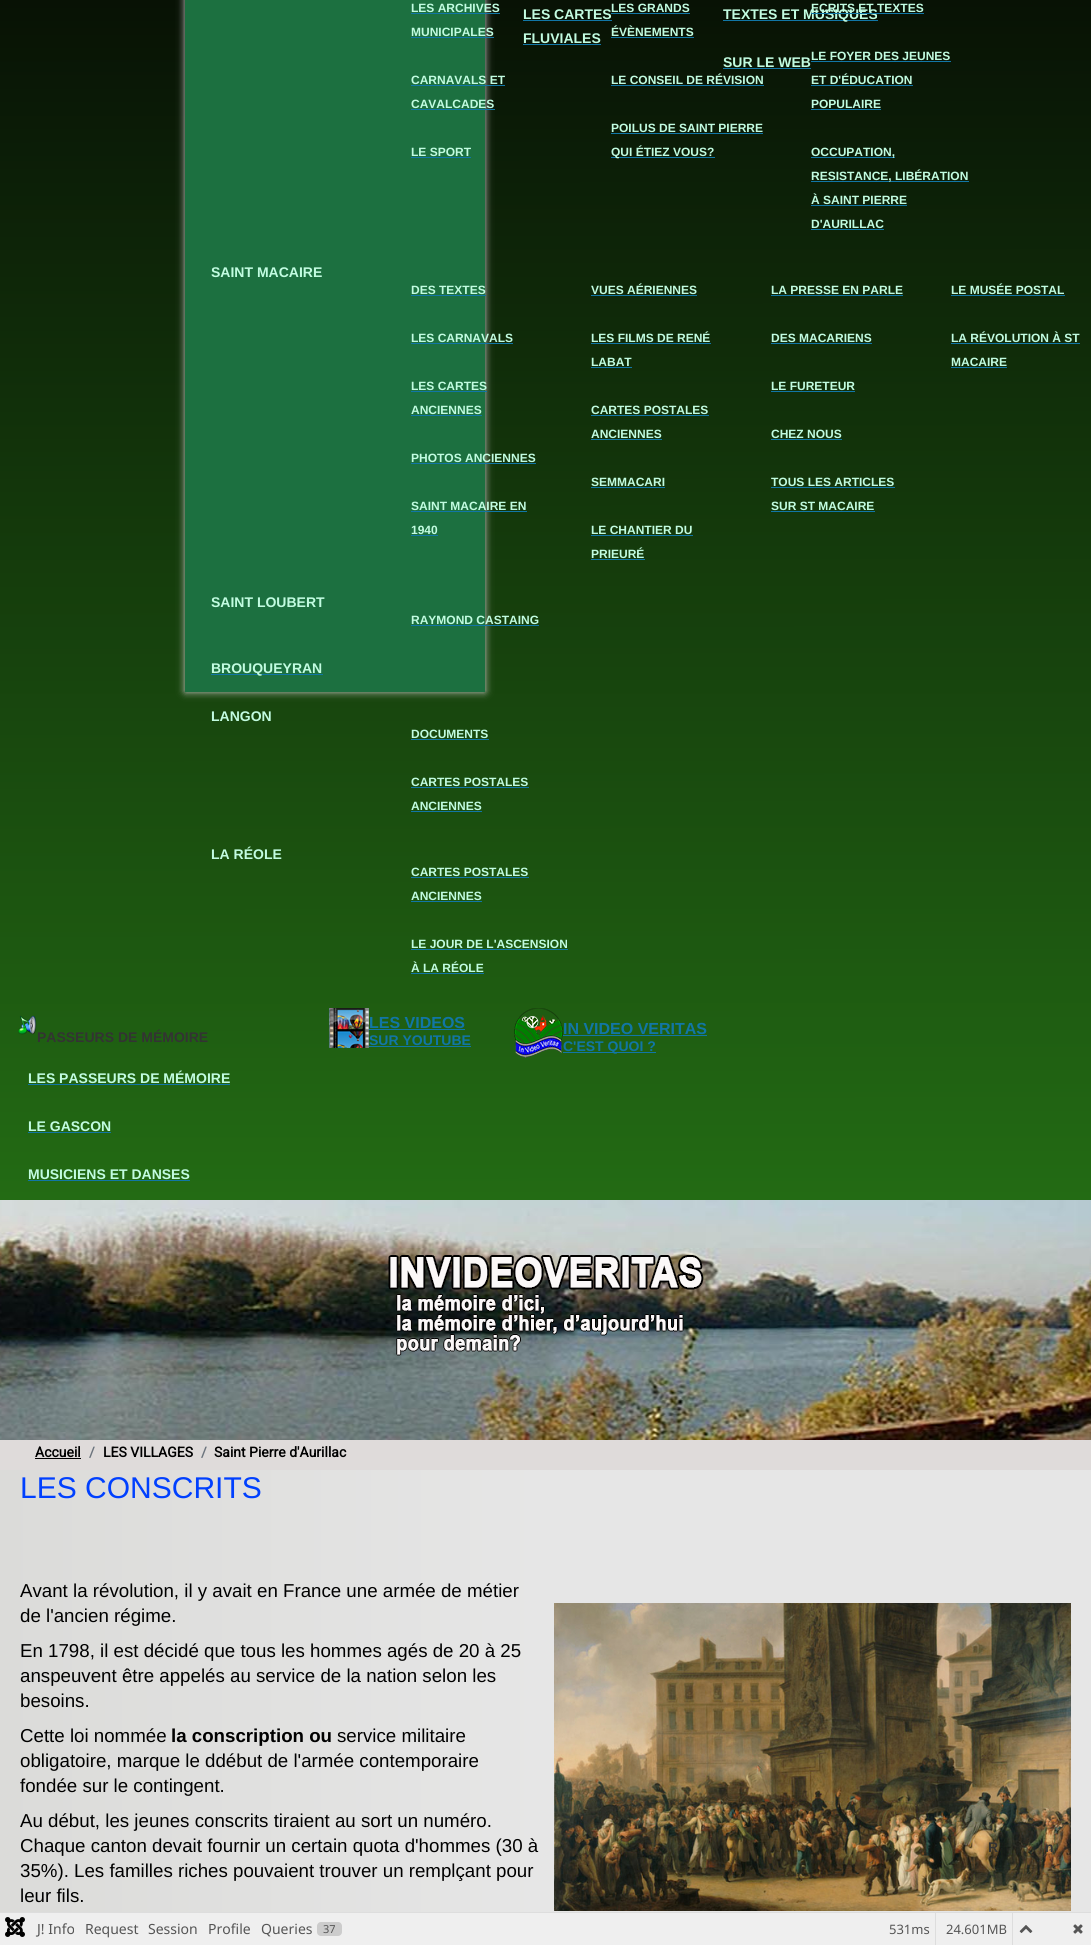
import math
import cairo

surface = cairo.ImageSurface(cairo.FORMAT_RGB24, 1091, 1945)
cr = cairo.Context(surface)
options = cairo.FontOptions()
options.set_hint_metrics(cairo.HINT_METRICS_OFF)
options.set_hint_style(cairo.HINT_STYLE_NONE)
cr.set_font_options(options)
cr.set_miter_limit(4)


def rgb(code):
    cr.set_source_rgb(*(v / 255 for v in bytes.fromhex(code[-6:])))


def rrect(x, y, w, h, r):
    cr.new_sub_path()
    for i, (u, v) in enumerate([(x + w - r, y + h - r), (x + r, y + h - r), (x + r, y + r), (x + w - r, y + r)]):
        cr.arc(u, v, r, i * math.pi / 2, (i + 1) * math.pi / 2)
    cr.close_path()


def soft_shadow(x, y, w, h, r, blur, alpha):
    cr.push_group_with_content(cairo.CONTENT_ALPHA)
    cr.set_operator(cairo.OPERATOR_SOURCE)
    for i in range(15, -16, -2):
        e = blur * i / 6
        if min(w, h) + 2 * e > 0:
            cr.set_source_rgba(0, 0, 0, alpha * math.erfc((i - 1) / 8.5) / 2)
            rrect(x - e, y - e, w + 2 * e, h + 2 * e, max(0, min(r + e + blur * .6, min(w, h) / 2 + e)))
            cr.fill()
    cr.mask(cr.pop_group())


def image(path, x, y, w, h):
    cr.save()
    cr.set_source_surface(cairo.ImageSurface.create_from_png(path), x, y)
    cr.rectangle(x, y, w, h)
    cr.fill()
    cr.restore()


rgb("#dfdbda")
cr.paint()
gradient = cairo.LinearGradient(545, -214, 546, 1200)
gradient.add_color_stop_rgba(0, 0.012, 0.008, 0.008, 1)
gradient.add_color_stop_rgba(1, 0.137, 0.42, 0.078, 1)
cr.set_source(gradient)
cr.rectangle(0, 0, 1091, 1200)
cr.fill()
rgb("#c7c7c7")
soft_shadow(185, -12, 300, 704, 0, 4, 1)
for x, y, w, h, color in [
    (185, 0, 300, 692, "#1c7040"),
    (411, 13, 89, 1, "#1176a6"),
    (411, 37, 83, 1, "#1176a6"),
    (411, 85, 94, 1, "#1176a6"),
    (411, 109, 84, 1, "#1176a6"),
    (411, 157, 60, 1, "#1176a6"),
    (611, 37, 83, 1, "#1176a6"),
    (611, 85, 153, 1, "#1176a6"),
    (611, 133, 152, 1, "#1176a6"),
    (611, 157, 104, 1, "#1176a6"),
    (811, 61, 140, 1, "#1176a6"),
    (811, 85, 102, 1, "#1176a6"),
    (811, 109, 70, 1, "#1176a6"),
    (811, 157, 84, 1, "#1176a6"),
    (811, 181, 158, 1, "#1176a6"),
    (811, 205, 96, 1, "#1176a6"),
    (811, 229, 73, 1, "#1176a6"),
    (411, 295, 75, 1, "#1176a6"),
    (411, 343, 102, 1, "#1176a6"),
    (411, 391, 76, 1, "#1176a6"),
    (411, 415, 71, 1, "#1176a6"),
    (411, 463, 125, 1, "#1176a6"),
    (411, 511, 116, 1, "#1176a6"),
    (411, 535, 27, 1, "#1176a6"),
    (591, 295, 106, 1, "#1176a6"),
    (591, 343, 120, 1, "#1176a6"),
    (591, 367, 41, 1, "#1176a6"),
    (591, 415, 118, 1, "#1176a6"),
    (591, 439, 71, 1, "#1176a6"),
    (591, 487, 74, 1, "#1176a6"),
    (591, 535, 102, 1, "#1176a6"),
    (591, 559, 54, 1, "#1176a6"),
    (771, 295, 132, 1, "#1176a6"),
    (771, 343, 101, 1, "#1176a6"),
    (771, 391, 84, 1, "#1176a6"),
    (771, 439, 71, 1, "#1176a6"),
    (771, 487, 124, 1, "#1176a6"),
    (771, 511, 104, 1, "#1176a6"),
    (951, 295, 114, 1, "#1176a6"),
    (951, 343, 129, 1, "#1176a6"),
    (951, 367, 56, 1, "#1176a6"),
    (411, 625, 128, 1, "#1176a6"),
    (211, 674, 112, 1, "#1176a6"),
    (411, 739, 78, 1, "#1176a6"),
    (411, 787, 118, 1, "#1176a6"),
    (411, 811, 71, 1, "#1176a6"),
    (411, 877, 118, 1, "#1176a6"),
    (411, 901, 71, 1, "#1176a6"),
    (411, 949, 157, 1, "#1176a6"),
    (411, 973, 73, 1, "#1176a6"),
    (523, 20, 89, 1, "#1176a6"),
    (523, 44, 78, 1, "#1176a6"),
    (723, 20, 155, 1, "#1176a6"),
    (723, 68, 88, 1, "#1176a6"),
]:
    rgb(color)
    cr.rectangle(x, y, w, h)
    cr.fill()
image("img/1.png", 18, 1015, 19, 20)
for x, y, w, h, color in [
    (28, 1084, 202, 1, "#1176a6"),
    (28, 1132, 83, 1, "#1176a6"),
    (28, 1180, 162, 1, "#1176a6"),
]:
    rgb(color)
    cr.rectangle(x, y, w, h)
    cr.fill()
image("img/2.png", 329, 1008, 40, 40)
cr.rectangle(369, 1029, 96, 1)
cr.fill()
cr.rectangle(369, 1046, 102, 1)
cr.fill()
image("img/3.png", 514, 1008, 49, 50)
cr.rectangle(563, 1035, 144, 1)
cr.fill()
cr.rectangle(563, 1052, 93, 1)
cr.fill()
image("img/4.png", 0, 1200, 1091, 240)
image("img/5.png", 388, 1255, 316, 101)
rgb("#000000")
cr.rectangle(35, 1458, 46, 1)
cr.fill()
gradient = cairo.LinearGradient(0, 1470, 1091, 1470)
gradient.add_color_stop_rgba(0, 0.859, 0.859, 0.851, 1)
gradient.add_color_stop_rgba(0.5, 0.902, 0.902, 0.902, 1)
cr.set_source(gradient)
cr.rectangle(0, 1470, 1091, 442)
cr.fill()
image("img/6.png", 554, 1603, 517, 308)
rgb("#dddddd")
cr.rectangle(0, 1912, 1091, 1)
cr.fill()
rgb("#efefef")
cr.rectangle(0, 1913, 1091, 32)
cr.fill()
image("img/7.png", 5, 1917, 20, 20)
rgb("#cccccc")
rrect(317, 1922, 25, 14, 4)
cr.fill()
rgb("#dddddd")
cr.rectangle(935, 1913, 1, 32)
cr.fill()
cr.rectangle(1012, 1913, 1, 32)
cr.fill()
image("img/8.png", 1019, 1925, 14, 8)
image("img/9.png", 1073, 1924, 10, 10)
cr.select_font_face("Liberation Sans", cairo.FONT_SLANT_NORMAL, cairo.FONT_WEIGHT_BOLD)
cr.set_font_size(12)
rgb("#c2fce1")
for x, y, s in [
    (411, 12, "LES ARCHIVES"),
    (411, 36, "MUNICIPALES"),
    (411, 84, "CARNAVALS ET"),
    (411, 108, "CAVALCADES"),
    (411, 156, "LE SPORT"),
    (611, 12, "LES GRANDS"),
    (611, 36, "ÉVÈNEMENTS"),
    (611, 84, "LE CONSEIL DE RÉVISION"),
    (611, 132, "POILUS DE SAINT PIERRE"),
    (611, 156, "QUI ÉTIEZ VOUS?"),
    (811, 12, "ECRITS ET TEXTES"),
    (811, 60, "LE FOYER DES JEUNES"),
    (811, 84, "ET D'ÉDUCATION"),
    (811, 108, "POPULAIRE"),
    (811, 156, "OCCUPATION,"),
    (811, 180, "RESISTANCE, LIBÉRATION"),
    (811, 204, "À SAINT PIERRE"),
    (811, 228, "D'AURILLAC"),
]:
    cr.move_to(x, y)
    cr.show_text(s)
cr.set_font_size(14)
cr.move_to(211, 277)
cr.show_text("SAINT MACAIRE")
cr.set_font_size(12)
for x, y, s in [
    (411, 294, "DES TEXTES"),
    (411, 342, "LES CARNAVALS"),
    (411, 390, "LES CARTES"),
    (411, 414, "ANCIENNES"),
    (411, 462, "PHOTOS ANCIENNES"),
    (411, 510, "SAINT MACAIRE EN"),
    (411, 534, "1940"),
    (591, 294, "VUES AÉRIENNES"),
    (591, 342, "LES FILMS DE RENÉ"),
    (591, 366, "LABAT"),
    (591, 414, "CARTES POSTALES"),
    (591, 438, "ANCIENNES"),
    (591, 486, "SEMMACARI"),
    (591, 534, "LE CHANTIER DU"),
    (591, 558, "PRIEURÉ"),
    (771, 294, "LA PRESSE EN PARLE"),
    (771, 342, "DES MACARIENS"),
    (771, 390, "LE FURETEUR"),
    (771, 438, "CHEZ NOUS"),
    (771, 486, "TOUS LES ARTICLES"),
    (771, 510, "SUR ST MACAIRE"),
    (951, 294, "LE MUSÉE POSTAL"),
    (951, 342, "LA RÉVOLUTION À ST"),
    (951, 366, "MACAIRE"),
]:
    cr.move_to(x, y)
    cr.show_text(s)
cr.set_font_size(14)
cr.move_to(211, 607)
cr.show_text("SAINT LOUBERT")
cr.set_font_size(12)
cr.move_to(411, 624)
cr.show_text("RAYMOND CASTAING")
cr.set_font_size(14)
cr.move_to(211, 673)
cr.show_text("BROUQUEYRAN")
cr.move_to(211, 721)
cr.show_text("LANGON")
cr.set_font_size(12)
for x, y, s in [
    (411, 738, "DOCUMENTS"),
    (411, 786, "CARTES POSTALES"),
    (411, 810, "ANCIENNES"),
]:
    cr.move_to(x, y)
    cr.show_text(s)
cr.set_font_size(14)
cr.move_to(211, 859)
cr.show_text("LA RÉOLE")
cr.set_font_size(12)
for x, y, s in [
    (411, 876, "CARTES POSTALES"),
    (411, 900, "ANCIENNES"),
    (411, 948, "LE JOUR DE L'ASCENSION"),
    (411, 972, "À LA RÉOLE"),
]:
    cr.move_to(x, y)
    cr.show_text(s)
cr.set_font_size(14)
cr.move_to(523, 19)
cr.show_text("LES CARTES")
rgb("#1176a6")
cr.rectangle(611, 13, 79, 1)
cr.fill()
rgb("#c2fce1")
cr.move_to(523, 43)
cr.show_text("FLUVIALES")
cr.move_to(723, 19)
cr.show_text("TEXTES ET MUSIQUES")
rgb("#1176a6")
cr.rectangle(811, 13, 113, 1)
cr.fill()
rgb("#c2fce1")
cr.move_to(723, 67)
cr.show_text("SUR LE WEB")
rgb("#333333")
cr.move_to(37, 1042)
cr.show_text("PASSEURS DE MÉMOIRE")
rgb("#c2fce1")
for x, y, s in [
    (28, 1083, "LES PASSEURS DE MÉMOIRE"),
    (28, 1131, "LE GASCON"),
    (28, 1179, "MUSICIENS ET DANSES"),
]:
    cr.move_to(x, y)
    cr.show_text(s)
cr.set_font_size(16)
rgb("#1176a6")
cr.move_to(369, 1028)
cr.show_text("LES VIDEOS")
cr.set_font_size(14)
cr.move_to(369, 1045)
cr.show_text("SUR YOUTUBE")
cr.set_font_size(16)
cr.move_to(563, 1034)
cr.show_text("IN VIDEO VERITAS")
cr.set_font_size(14)
cr.move_to(563, 1051)
cr.show_text("C'EST QUOI ?")
cr.select_font_face("Roboto", cairo.FONT_SLANT_NORMAL, cairo.FONT_WEIGHT_BOLD)
rgb("#000000")
cr.move_to(35, 1457)
cr.show_text("Accueil")
rgb("#6d757e")
cr.move_to(89, 1457)
cr.show_text("/")
rgb("#000000")
cr.move_to(103, 1457)
cr.show_text("LES VILLAGES")
rgb("#6d757e")
cr.move_to(201, 1457)
cr.show_text("/")
rgb("#000000")
cr.move_to(214, 1457)
cr.show_text("Saint Pierre d'Aurillac")
cr.select_font_face("Liberation Sans")
cr.set_font_size(30)
rgb("#0040ff")
cr.move_to(20, 1498)
cr.show_text("LES CONSCRITS")
cr.set_font_size(18.7)
rgb("#000000")
for x, y, s in [
    (20, 1597, "Avant la révolution, il y avait en France une armée de métier"),
    (20, 1622, "de l'ancien régime."),
    (20, 1657, "En 1798, il est décidé que tous les hommes agés de 20 à 25"),
    (20, 1682, "anspeuvent être appelés au service de la nation selon les"),
    (20, 1707, "besoins."),
    (20, 1742, "Cette loi nommée"),
]:
    cr.move_to(x, y)
    cr.show_text(s)
cr.select_font_face("Liberation Sans", cairo.FONT_SLANT_NORMAL, cairo.FONT_WEIGHT_BOLD)
cr.move_to(171, 1742)
cr.show_text("la conscription ou")
cr.select_font_face("Liberation Sans")
for x, y, s in [
    (337, 1742, "service militaire"),
    (20, 1767, "obligatoire, marque le ddébut de l'armée contemporaire"),
    (20, 1792, "fondée sur le contingent."),
    (20, 1827, "Au début, les jeunes conscrits tiraient au sort un numéro."),
    (20, 1852, "Chaque canton devait fournir un certain quota d'hommes (30 à"),
    (20, 1877, "35%). Les familles riches pouvaient trouver un remplçant pour"),
    (20, 1902, "leur fils."),
]:
    cr.move_to(x, y)
    cr.show_text(s)
cr.select_font_face("Liberation Sans", cairo.FONT_SLANT_NORMAL, cairo.FONT_WEIGHT_BOLD)
cr.set_font_size(14)
rgb("#333333")
cr.move_to(988, 1852)
cr.show_text("R")
cr.move_to(1045, 1852)
cr.show_text("n")
cr.select_font_face("Noto Sans")
rgb("#555555")
for x, y, s in [
    (37, 1934, "J! Info"),
    (85, 1934, "Request"),
    (148, 1934, "Session"),
    (208, 1934, "Profile"),
    (261, 1934, "Queries"),
]:
    cr.move_to(x, y)
    cr.show_text(s)
cr.set_font_size(11)
cr.move_to(323, 1933)
cr.show_text("37")
cr.set_font_size(13)
cr.move_to(889, 1934)
cr.show_text("531ms")
cr.move_to(946, 1934)
cr.show_text("24.601MB")
surface.write_to_png("page.png")
